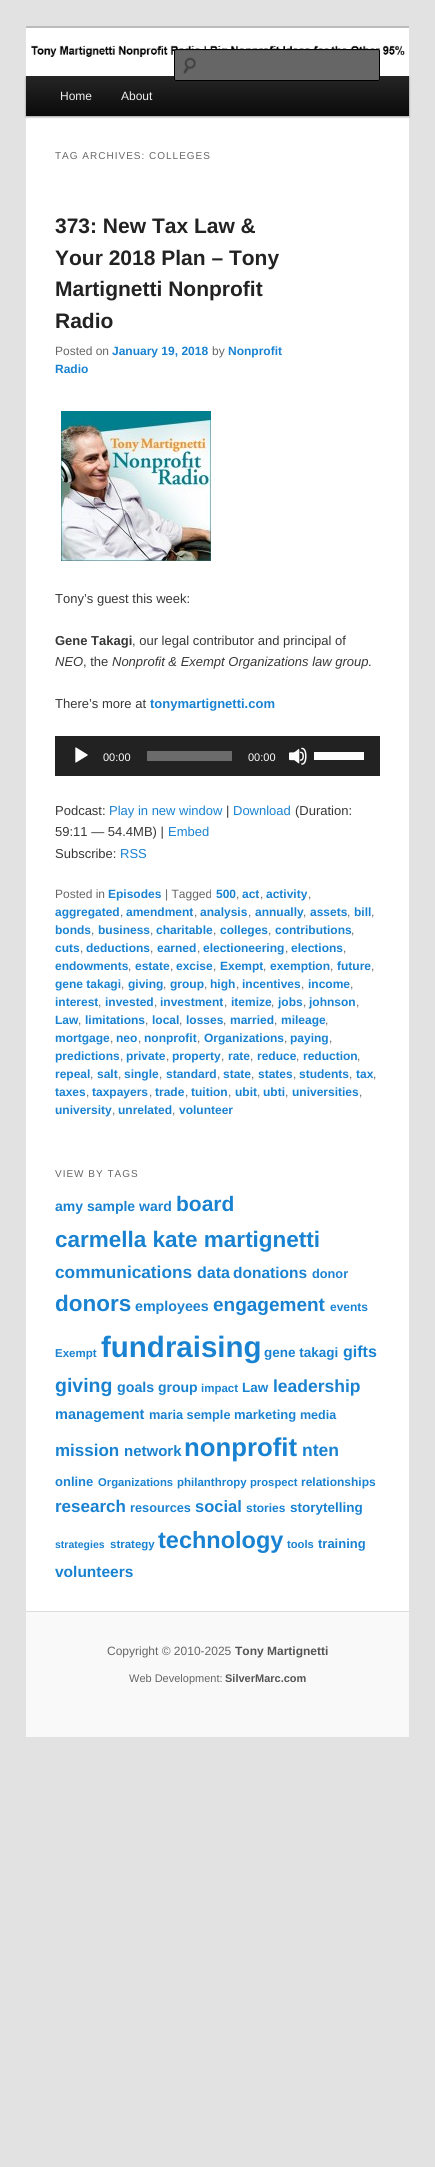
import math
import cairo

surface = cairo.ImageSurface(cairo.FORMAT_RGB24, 435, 2167)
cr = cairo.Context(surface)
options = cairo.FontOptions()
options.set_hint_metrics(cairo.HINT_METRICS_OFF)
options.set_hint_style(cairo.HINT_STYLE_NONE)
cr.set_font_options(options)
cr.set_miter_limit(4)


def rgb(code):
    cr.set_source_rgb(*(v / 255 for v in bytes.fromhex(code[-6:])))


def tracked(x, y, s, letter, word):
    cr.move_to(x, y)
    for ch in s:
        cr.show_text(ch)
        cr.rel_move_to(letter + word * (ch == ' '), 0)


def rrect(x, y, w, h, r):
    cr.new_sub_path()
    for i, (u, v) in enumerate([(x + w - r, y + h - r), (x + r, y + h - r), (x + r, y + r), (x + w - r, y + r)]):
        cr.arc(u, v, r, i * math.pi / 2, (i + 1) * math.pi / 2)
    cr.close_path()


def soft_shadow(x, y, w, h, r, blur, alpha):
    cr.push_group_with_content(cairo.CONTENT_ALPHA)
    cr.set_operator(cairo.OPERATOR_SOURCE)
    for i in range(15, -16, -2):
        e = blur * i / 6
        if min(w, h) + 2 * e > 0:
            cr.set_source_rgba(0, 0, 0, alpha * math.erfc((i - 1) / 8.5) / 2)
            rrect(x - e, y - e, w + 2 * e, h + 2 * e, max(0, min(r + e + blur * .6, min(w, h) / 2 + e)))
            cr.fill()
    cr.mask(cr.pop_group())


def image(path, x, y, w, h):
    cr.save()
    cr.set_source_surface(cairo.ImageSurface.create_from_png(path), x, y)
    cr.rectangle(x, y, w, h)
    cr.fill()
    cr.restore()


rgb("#e2e2e2")
cr.paint()
rgb("#ffffff")
cr.rectangle(26, 28, 383, 1583)
cr.fill()
rgb("#bbbbbb")
cr.rectangle(26, 26, 383, 2)
cr.fill()
rgb("#000000")
soft_shadow(26, 77, 383, 40, 0, 1, 0.4)
image("img/1.png", 26, 45, 383, 31)
gradient = cairo.LinearGradient(218, 76, 218, 116)
gradient.add_color_stop_rgba(0, 0.145, 0.145, 0.145, 1)
gradient.add_color_stop_rgba(1, 0.039, 0.039, 0.039, 1)
cr.set_source(gradient)
cr.rectangle(26, 76, 383, 40)
cr.fill()
rgb("#666666")
rrect(174, 49, 206, 32, 2)
cr.fill()
image("img/2.png", 183, 57, 13, 17)
rgb("#5c5c5c")
cr.new_path()
cr.move_to(176, 51)
cr.line_to(379, 51)
cr.line_to(379, 52)
cr.line_to(379, 50)
cr.line_to(378, 50)
cr.line_to(176, 50)
cr.curve_to(175, 50, 175, 51, 175, 52)
cr.curve_to(175, 51, 175, 51, 176, 51)
cr.close_path()
cr.fill()
rrect(174.5, 49.5, 205, 31, 1.5)
rgb("#000000")
cr.set_line_width(1)
cr.stroke()
image("img/3.png", 61, 411, 150, 150)
rgb("#222222")
cr.rectangle(55, 736, 325, 40)
cr.fill()
image("img/4.png", 75, 747, 13, 16)
rgb("#6b6b6b")
cr.rectangle(147, 751, 85, 10)
cr.fill()
image("img/5.png", 289, 747, 18, 18)
for x, y, w, h, color in [
    (314, 752, 50, 8, "#ffffff"),
    (26, 1612, 383, 125, "#f9f9f9"),
    (26, 1611, 383, 1, "#dddddd"),
]:
    rgb(color)
    cr.rectangle(x, y, w, h)
    cr.fill()
cr.select_font_face("Liberation Sans")
cr.set_font_size(12)
rgb("#eeeeee")
cr.move_to(60, 100)
cr.show_text("Home")
cr.move_to(121, 100)
cr.show_text("About")
cr.set_font_size(10)
rgb("#666666")
tracked(55, 159, "TAG ARCHIVES: COLLEGES", 1, 0)
cr.select_font_face("Liberation Sans", cairo.FONT_SLANT_NORMAL, cairo.FONT_WEIGHT_BOLD)
cr.set_font_size(21)
rgb("#222222")
for x, y, s in [
    (55, 233, "373: New Tax Law &"),
    (55, 265, "Your 2018 Plan – Tony"),
    (55, 296, "Martignetti Nonprofit"),
    (55, 328, "Radio"),
]:
    cr.move_to(x, y)
    cr.show_text(s)
cr.select_font_face("Liberation Sans")
cr.set_font_size(12)
rgb("#666666")
cr.move_to(55, 355)
cr.show_text("Posted on")
cr.select_font_face("Liberation Sans", cairo.FONT_SLANT_NORMAL, cairo.FONT_WEIGHT_BOLD)
rgb("#1982d1")
cr.move_to(112, 355)
cr.show_text("January 19, 2018")
cr.select_font_face("Liberation Sans")
rgb("#666666")
cr.move_to(212, 355)
cr.show_text("by")
cr.select_font_face("Liberation Sans", cairo.FONT_SLANT_NORMAL, cairo.FONT_WEIGHT_BOLD)
rgb("#1982d1")
cr.move_to(228, 355)
cr.show_text("Nonprofit")
cr.move_to(55, 373)
cr.show_text("Radio")
cr.select_font_face("Liberation Sans")
cr.set_font_size(13)
rgb("#373737")
cr.move_to(55, 603)
cr.show_text("Tony’s guest this week:")
cr.select_font_face("Liberation Sans", cairo.FONT_SLANT_NORMAL, cairo.FONT_WEIGHT_BOLD)
cr.move_to(55, 645)
cr.show_text("Gene Takagi")
cr.select_font_face("Liberation Sans")
cr.move_to(132, 645)
cr.show_text(", our legal contributor and principal of")
cr.select_font_face("Liberation Sans", cairo.FONT_SLANT_ITALIC)
cr.move_to(55, 666)
cr.show_text("NEO")
cr.select_font_face("Liberation Sans")
cr.move_to(83, 666)
cr.show_text(", the")
cr.select_font_face("Liberation Sans", cairo.FONT_SLANT_ITALIC)
cr.move_to(112, 666)
cr.show_text("Nonprofit & Exempt Organizations law group.")
cr.select_font_face("Liberation Sans")
cr.move_to(55, 708)
cr.show_text("There’s more at")
cr.select_font_face("Liberation Sans", cairo.FONT_SLANT_NORMAL, cairo.FONT_WEIGHT_BOLD)
rgb("#1982d1")
cr.move_to(150, 708)
cr.show_text("tonymartignetti.com")
cr.select_font_face("Liberation Sans")
cr.set_font_size(11)
rgb("#ffffff")
cr.move_to(103, 761)
cr.show_text("00:00")
cr.move_to(248, 761)
cr.show_text("00:00")
cr.set_font_size(13)
rgb("#373737")
cr.move_to(55, 815)
cr.show_text("Podcast:")
rgb("#1982d1")
cr.move_to(109, 815)
cr.show_text("Play in new window")
rgb("#373737")
cr.move_to(226, 815)
cr.show_text("|")
rgb("#1982d1")
cr.move_to(233, 815)
cr.show_text("Download")
rgb("#373737")
cr.move_to(295, 815)
cr.show_text("(Duration:")
cr.move_to(55, 836)
cr.show_text("59:11 — 54.4MB) |")
rgb("#1982d1")
cr.move_to(168, 836)
cr.show_text("Embed")
rgb("#373737")
cr.move_to(55, 858)
cr.show_text("Subscribe:")
rgb("#1982d1")
cr.move_to(120, 858)
cr.show_text("RSS")
cr.set_font_size(12)
rgb("#666666")
cr.move_to(55, 898)
cr.show_text("Posted in")
cr.select_font_face("Liberation Sans", cairo.FONT_SLANT_NORMAL, cairo.FONT_WEIGHT_BOLD)
rgb("#1982d1")
cr.move_to(108, 898)
cr.show_text("Episodes")
cr.select_font_face("Liberation Sans")
rgb("#666666")
cr.move_to(165, 898)
cr.show_text("| Tagged")
cr.select_font_face("Liberation Sans", cairo.FONT_SLANT_NORMAL, cairo.FONT_WEIGHT_BOLD)
rgb("#1982d1")
cr.move_to(216, 898)
cr.show_text("500")
cr.select_font_face("Liberation Sans")
rgb("#666666")
cr.move_to(236, 898)
cr.show_text(",")
cr.select_font_face("Liberation Sans", cairo.FONT_SLANT_NORMAL, cairo.FONT_WEIGHT_BOLD)
rgb("#1982d1")
cr.move_to(242, 898)
cr.show_text("act")
cr.select_font_face("Liberation Sans")
rgb("#666666")
cr.move_to(260, 898)
cr.show_text(",")
cr.select_font_face("Liberation Sans", cairo.FONT_SLANT_NORMAL, cairo.FONT_WEIGHT_BOLD)
rgb("#1982d1")
cr.move_to(266, 898)
cr.show_text("activity")
cr.select_font_face("Liberation Sans")
rgb("#666666")
cr.move_to(308, 898)
cr.show_text(",")
cr.select_font_face("Liberation Sans", cairo.FONT_SLANT_NORMAL, cairo.FONT_WEIGHT_BOLD)
rgb("#1982d1")
cr.move_to(55, 916)
cr.show_text("aggregated")
cr.select_font_face("Liberation Sans")
rgb("#666666")
cr.move_to(120, 916)
cr.show_text(",")
cr.select_font_face("Liberation Sans", cairo.FONT_SLANT_NORMAL, cairo.FONT_WEIGHT_BOLD)
rgb("#1982d1")
cr.move_to(126, 916)
cr.show_text("amendment")
cr.select_font_face("Liberation Sans")
rgb("#666666")
cr.move_to(194, 916)
cr.show_text(",")
cr.select_font_face("Liberation Sans", cairo.FONT_SLANT_NORMAL, cairo.FONT_WEIGHT_BOLD)
rgb("#1982d1")
cr.move_to(200, 916)
cr.show_text("analysis")
cr.select_font_face("Liberation Sans")
rgb("#666666")
cr.move_to(248, 916)
cr.show_text(",")
cr.select_font_face("Liberation Sans", cairo.FONT_SLANT_NORMAL, cairo.FONT_WEIGHT_BOLD)
rgb("#1982d1")
cr.move_to(255, 916)
cr.show_text("annually")
cr.select_font_face("Liberation Sans")
rgb("#666666")
cr.move_to(303, 916)
cr.show_text(",")
cr.select_font_face("Liberation Sans", cairo.FONT_SLANT_NORMAL, cairo.FONT_WEIGHT_BOLD)
rgb("#1982d1")
cr.move_to(310, 916)
cr.show_text("assets")
cr.select_font_face("Liberation Sans")
rgb("#666666")
cr.move_to(347, 916)
cr.show_text(",")
cr.select_font_face("Liberation Sans", cairo.FONT_SLANT_NORMAL, cairo.FONT_WEIGHT_BOLD)
rgb("#1982d1")
cr.move_to(354, 916)
cr.show_text("bill")
cr.select_font_face("Liberation Sans")
rgb("#666666")
cr.move_to(371, 916)
cr.show_text(",")
cr.select_font_face("Liberation Sans", cairo.FONT_SLANT_NORMAL, cairo.FONT_WEIGHT_BOLD)
rgb("#1982d1")
cr.move_to(55, 934)
cr.show_text("bonds")
cr.select_font_face("Liberation Sans")
rgb("#666666")
cr.move_to(91, 934)
cr.show_text(",")
cr.select_font_face("Liberation Sans", cairo.FONT_SLANT_NORMAL, cairo.FONT_WEIGHT_BOLD)
rgb("#1982d1")
cr.move_to(98, 934)
cr.show_text("business")
cr.select_font_face("Liberation Sans")
rgb("#666666")
cr.move_to(150, 934)
cr.show_text(",")
cr.select_font_face("Liberation Sans", cairo.FONT_SLANT_NORMAL, cairo.FONT_WEIGHT_BOLD)
rgb("#1982d1")
cr.move_to(156, 934)
cr.show_text("charitable")
cr.select_font_face("Liberation Sans")
rgb("#666666")
cr.move_to(213, 934)
cr.show_text(",")
cr.select_font_face("Liberation Sans", cairo.FONT_SLANT_NORMAL, cairo.FONT_WEIGHT_BOLD)
rgb("#1982d1")
cr.move_to(220, 934)
cr.show_text("colleges")
cr.select_font_face("Liberation Sans")
rgb("#666666")
cr.move_to(268, 934)
cr.show_text(",")
cr.select_font_face("Liberation Sans", cairo.FONT_SLANT_NORMAL, cairo.FONT_WEIGHT_BOLD)
rgb("#1982d1")
cr.move_to(275, 934)
cr.show_text("contributions")
cr.select_font_face("Liberation Sans")
rgb("#666666")
cr.move_to(351, 934)
cr.show_text(",")
cr.select_font_face("Liberation Sans", cairo.FONT_SLANT_NORMAL, cairo.FONT_WEIGHT_BOLD)
rgb("#1982d1")
cr.move_to(55, 952)
cr.show_text("cuts")
cr.select_font_face("Liberation Sans")
rgb("#666666")
cr.move_to(80, 952)
cr.show_text(",")
cr.select_font_face("Liberation Sans", cairo.FONT_SLANT_NORMAL, cairo.FONT_WEIGHT_BOLD)
rgb("#1982d1")
cr.move_to(86, 952)
cr.show_text("deductions")
cr.select_font_face("Liberation Sans")
rgb("#666666")
cr.move_to(150, 952)
cr.show_text(",")
cr.select_font_face("Liberation Sans", cairo.FONT_SLANT_NORMAL, cairo.FONT_WEIGHT_BOLD)
rgb("#1982d1")
cr.move_to(157, 952)
cr.show_text("earned")
cr.select_font_face("Liberation Sans")
rgb("#666666")
cr.move_to(197, 952)
cr.show_text(",")
cr.select_font_face("Liberation Sans", cairo.FONT_SLANT_NORMAL, cairo.FONT_WEIGHT_BOLD)
rgb("#1982d1")
cr.move_to(203, 952)
cr.show_text("electioneering")
cr.select_font_face("Liberation Sans")
rgb("#666666")
cr.move_to(285, 952)
cr.show_text(",")
cr.select_font_face("Liberation Sans", cairo.FONT_SLANT_NORMAL, cairo.FONT_WEIGHT_BOLD)
rgb("#1982d1")
cr.move_to(291, 952)
cr.show_text("elections")
cr.select_font_face("Liberation Sans")
rgb("#666666")
cr.move_to(343, 952)
cr.show_text(",")
cr.select_font_face("Liberation Sans", cairo.FONT_SLANT_NORMAL, cairo.FONT_WEIGHT_BOLD)
rgb("#1982d1")
cr.move_to(55, 970)
cr.show_text("endowments")
cr.select_font_face("Liberation Sans")
rgb("#666666")
cr.move_to(128, 970)
cr.show_text(",")
cr.select_font_face("Liberation Sans", cairo.FONT_SLANT_NORMAL, cairo.FONT_WEIGHT_BOLD)
rgb("#1982d1")
cr.move_to(135, 970)
cr.show_text("estate")
cr.select_font_face("Liberation Sans")
rgb("#666666")
cr.move_to(170, 970)
cr.show_text(",")
cr.select_font_face("Liberation Sans", cairo.FONT_SLANT_NORMAL, cairo.FONT_WEIGHT_BOLD)
rgb("#1982d1")
cr.move_to(176, 970)
cr.show_text("excise")
cr.select_font_face("Liberation Sans")
rgb("#666666")
cr.move_to(213, 970)
cr.show_text(",")
cr.select_font_face("Liberation Sans", cairo.FONT_SLANT_NORMAL, cairo.FONT_WEIGHT_BOLD)
rgb("#1982d1")
cr.move_to(220, 970)
cr.show_text("Exempt")
cr.select_font_face("Liberation Sans")
rgb("#666666")
cr.move_to(263, 970)
cr.show_text(",")
cr.select_font_face("Liberation Sans", cairo.FONT_SLANT_NORMAL, cairo.FONT_WEIGHT_BOLD)
rgb("#1982d1")
cr.move_to(270, 970)
cr.show_text("exemption")
cr.select_font_face("Liberation Sans")
rgb("#666666")
cr.move_to(330, 970)
cr.show_text(",")
cr.select_font_face("Liberation Sans", cairo.FONT_SLANT_NORMAL, cairo.FONT_WEIGHT_BOLD)
rgb("#1982d1")
cr.move_to(337, 970)
cr.show_text("future")
cr.select_font_face("Liberation Sans")
rgb("#666666")
cr.move_to(371, 970)
cr.show_text(",")
cr.select_font_face("Liberation Sans", cairo.FONT_SLANT_NORMAL, cairo.FONT_WEIGHT_BOLD)
rgb("#1982d1")
cr.move_to(55, 988)
cr.show_text("gene takagi")
cr.select_font_face("Liberation Sans")
rgb("#666666")
cr.move_to(121, 988)
cr.show_text(",")
cr.select_font_face("Liberation Sans", cairo.FONT_SLANT_NORMAL, cairo.FONT_WEIGHT_BOLD)
rgb("#1982d1")
cr.move_to(128, 988)
cr.show_text("giving")
cr.select_font_face("Liberation Sans")
rgb("#666666")
cr.move_to(163, 988)
cr.show_text(",")
cr.select_font_face("Liberation Sans", cairo.FONT_SLANT_NORMAL, cairo.FONT_WEIGHT_BOLD)
rgb("#1982d1")
cr.move_to(170, 988)
cr.show_text("group")
cr.select_font_face("Liberation Sans")
rgb("#666666")
cr.move_to(204, 988)
cr.show_text(",")
cr.select_font_face("Liberation Sans", cairo.FONT_SLANT_NORMAL, cairo.FONT_WEIGHT_BOLD)
rgb("#1982d1")
cr.move_to(210, 988)
cr.show_text("high")
cr.select_font_face("Liberation Sans")
rgb("#666666")
cr.move_to(236, 988)
cr.show_text(",")
cr.select_font_face("Liberation Sans", cairo.FONT_SLANT_NORMAL, cairo.FONT_WEIGHT_BOLD)
rgb("#1982d1")
cr.move_to(242, 988)
cr.show_text("incentives")
cr.select_font_face("Liberation Sans")
rgb("#666666")
cr.move_to(301, 988)
cr.show_text(",")
cr.select_font_face("Liberation Sans", cairo.FONT_SLANT_NORMAL, cairo.FONT_WEIGHT_BOLD)
rgb("#1982d1")
cr.move_to(308, 988)
cr.show_text("income")
cr.select_font_face("Liberation Sans")
rgb("#666666")
cr.move_to(350, 988)
cr.show_text(",")
cr.select_font_face("Liberation Sans", cairo.FONT_SLANT_NORMAL, cairo.FONT_WEIGHT_BOLD)
rgb("#1982d1")
cr.move_to(55, 1006)
cr.show_text("interest")
cr.select_font_face("Liberation Sans")
rgb("#666666")
cr.move_to(98, 1006)
cr.show_text(",")
cr.select_font_face("Liberation Sans", cairo.FONT_SLANT_NORMAL, cairo.FONT_WEIGHT_BOLD)
rgb("#1982d1")
cr.move_to(105, 1006)
cr.show_text("invested")
cr.select_font_face("Liberation Sans")
rgb("#666666")
cr.move_to(154, 1006)
cr.show_text(",")
cr.select_font_face("Liberation Sans", cairo.FONT_SLANT_NORMAL, cairo.FONT_WEIGHT_BOLD)
rgb("#1982d1")
cr.move_to(160, 1006)
cr.show_text("investment")
cr.select_font_face("Liberation Sans")
rgb("#666666")
cr.move_to(224, 1006)
cr.show_text(",")
cr.select_font_face("Liberation Sans", cairo.FONT_SLANT_NORMAL, cairo.FONT_WEIGHT_BOLD)
rgb("#1982d1")
cr.move_to(231, 1006)
cr.show_text("itemize")
cr.select_font_face("Liberation Sans")
rgb("#666666")
cr.move_to(271, 1006)
cr.show_text(",")
cr.select_font_face("Liberation Sans", cairo.FONT_SLANT_NORMAL, cairo.FONT_WEIGHT_BOLD)
rgb("#1982d1")
cr.move_to(278, 1006)
cr.show_text("jobs")
cr.select_font_face("Liberation Sans")
rgb("#666666")
cr.move_to(303, 1006)
cr.show_text(",")
cr.select_font_face("Liberation Sans", cairo.FONT_SLANT_NORMAL, cairo.FONT_WEIGHT_BOLD)
rgb("#1982d1")
cr.move_to(309, 1006)
cr.show_text("johnson")
cr.select_font_face("Liberation Sans")
rgb("#666666")
cr.move_to(356, 1006)
cr.show_text(",")
cr.select_font_face("Liberation Sans", cairo.FONT_SLANT_NORMAL, cairo.FONT_WEIGHT_BOLD)
rgb("#1982d1")
cr.move_to(55, 1024)
cr.show_text("Law")
cr.select_font_face("Liberation Sans")
rgb("#666666")
cr.move_to(78, 1024)
cr.show_text(",")
cr.select_font_face("Liberation Sans", cairo.FONT_SLANT_NORMAL, cairo.FONT_WEIGHT_BOLD)
rgb("#1982d1")
cr.move_to(85, 1024)
cr.show_text("limitations")
cr.select_font_face("Liberation Sans")
rgb("#666666")
cr.move_to(145, 1024)
cr.show_text(",")
cr.select_font_face("Liberation Sans", cairo.FONT_SLANT_NORMAL, cairo.FONT_WEIGHT_BOLD)
rgb("#1982d1")
cr.move_to(152, 1024)
cr.show_text("local")
cr.select_font_face("Liberation Sans")
rgb("#666666")
cr.move_to(179, 1024)
cr.show_text(",")
cr.select_font_face("Liberation Sans", cairo.FONT_SLANT_NORMAL, cairo.FONT_WEIGHT_BOLD)
rgb("#1982d1")
cr.move_to(186, 1024)
cr.show_text("losses")
cr.select_font_face("Liberation Sans")
rgb("#666666")
cr.move_to(223, 1024)
cr.show_text(",")
cr.select_font_face("Liberation Sans", cairo.FONT_SLANT_NORMAL, cairo.FONT_WEIGHT_BOLD)
rgb("#1982d1")
cr.move_to(230, 1024)
cr.show_text("married")
cr.select_font_face("Liberation Sans")
rgb("#666666")
cr.move_to(274, 1024)
cr.show_text(",")
cr.select_font_face("Liberation Sans", cairo.FONT_SLANT_NORMAL, cairo.FONT_WEIGHT_BOLD)
rgb("#1982d1")
cr.move_to(281, 1024)
cr.show_text("mileage")
cr.select_font_face("Liberation Sans")
rgb("#666666")
cr.move_to(325, 1024)
cr.show_text(",")
cr.select_font_face("Liberation Sans", cairo.FONT_SLANT_NORMAL, cairo.FONT_WEIGHT_BOLD)
rgb("#1982d1")
cr.move_to(55, 1042)
cr.show_text("mortgage")
cr.select_font_face("Liberation Sans")
rgb("#666666")
cr.move_to(110, 1042)
cr.show_text(",")
cr.select_font_face("Liberation Sans", cairo.FONT_SLANT_NORMAL, cairo.FONT_WEIGHT_BOLD)
rgb("#1982d1")
cr.move_to(116, 1042)
cr.show_text("neo")
cr.select_font_face("Liberation Sans")
rgb("#666666")
cr.move_to(138, 1042)
cr.show_text(",")
cr.select_font_face("Liberation Sans", cairo.FONT_SLANT_NORMAL, cairo.FONT_WEIGHT_BOLD)
rgb("#1982d1")
cr.move_to(144, 1042)
cr.show_text("nonprofit")
cr.select_font_face("Liberation Sans")
rgb("#666666")
cr.move_to(197, 1042)
cr.show_text(",")
cr.select_font_face("Liberation Sans", cairo.FONT_SLANT_NORMAL, cairo.FONT_WEIGHT_BOLD)
rgb("#1982d1")
cr.move_to(204, 1042)
cr.show_text("Organizations")
cr.select_font_face("Liberation Sans")
rgb("#666666")
cr.move_to(284, 1042)
cr.show_text(",")
cr.select_font_face("Liberation Sans", cairo.FONT_SLANT_NORMAL, cairo.FONT_WEIGHT_BOLD)
rgb("#1982d1")
cr.move_to(290, 1042)
cr.show_text("paying")
cr.select_font_face("Liberation Sans")
rgb("#666666")
cr.move_to(329, 1042)
cr.show_text(",")
cr.select_font_face("Liberation Sans", cairo.FONT_SLANT_NORMAL, cairo.FONT_WEIGHT_BOLD)
rgb("#1982d1")
cr.move_to(55, 1060)
cr.show_text("predictions")
cr.select_font_face("Liberation Sans")
rgb("#666666")
cr.move_to(120, 1060)
cr.show_text(",")
cr.select_font_face("Liberation Sans", cairo.FONT_SLANT_NORMAL, cairo.FONT_WEIGHT_BOLD)
rgb("#1982d1")
cr.move_to(126, 1060)
cr.show_text("private")
cr.select_font_face("Liberation Sans")
rgb("#666666")
cr.move_to(166, 1060)
cr.show_text(",")
cr.select_font_face("Liberation Sans", cairo.FONT_SLANT_NORMAL, cairo.FONT_WEIGHT_BOLD)
rgb("#1982d1")
cr.move_to(172, 1060)
cr.show_text("property")
cr.select_font_face("Liberation Sans")
rgb("#666666")
cr.move_to(221, 1060)
cr.show_text(",")
cr.select_font_face("Liberation Sans", cairo.FONT_SLANT_NORMAL, cairo.FONT_WEIGHT_BOLD)
rgb("#1982d1")
cr.move_to(228, 1060)
cr.show_text("rate")
cr.select_font_face("Liberation Sans")
rgb("#666666")
cr.move_to(250, 1060)
cr.show_text(",")
cr.select_font_face("Liberation Sans", cairo.FONT_SLANT_NORMAL, cairo.FONT_WEIGHT_BOLD)
rgb("#1982d1")
cr.move_to(257, 1060)
cr.show_text("reduce")
cr.select_font_face("Liberation Sans")
rgb("#666666")
cr.move_to(296, 1060)
cr.show_text(",")
cr.select_font_face("Liberation Sans", cairo.FONT_SLANT_NORMAL, cairo.FONT_WEIGHT_BOLD)
rgb("#1982d1")
cr.move_to(303, 1060)
cr.show_text("reduction")
cr.select_font_face("Liberation Sans")
rgb("#666666")
cr.move_to(357, 1060)
cr.show_text(",")
cr.select_font_face("Liberation Sans", cairo.FONT_SLANT_NORMAL, cairo.FONT_WEIGHT_BOLD)
rgb("#1982d1")
cr.move_to(55, 1078)
cr.show_text("repeal")
cr.select_font_face("Liberation Sans")
rgb("#666666")
cr.move_to(90, 1078)
cr.show_text(",")
cr.select_font_face("Liberation Sans", cairo.FONT_SLANT_NORMAL, cairo.FONT_WEIGHT_BOLD)
rgb("#1982d1")
cr.move_to(97, 1078)
cr.show_text("salt")
cr.select_font_face("Liberation Sans")
rgb("#666666")
cr.move_to(118, 1078)
cr.show_text(",")
cr.select_font_face("Liberation Sans", cairo.FONT_SLANT_NORMAL, cairo.FONT_WEIGHT_BOLD)
rgb("#1982d1")
cr.move_to(124, 1078)
cr.show_text("single")
cr.select_font_face("Liberation Sans")
rgb("#666666")
cr.move_to(159, 1078)
cr.show_text(",")
cr.select_font_face("Liberation Sans", cairo.FONT_SLANT_NORMAL, cairo.FONT_WEIGHT_BOLD)
rgb("#1982d1")
cr.move_to(166, 1078)
cr.show_text("standard")
cr.select_font_face("Liberation Sans")
rgb("#666666")
cr.move_to(217, 1078)
cr.show_text(",")
cr.select_font_face("Liberation Sans", cairo.FONT_SLANT_NORMAL, cairo.FONT_WEIGHT_BOLD)
rgb("#1982d1")
cr.move_to(223, 1078)
cr.show_text("state")
cr.select_font_face("Liberation Sans")
rgb("#666666")
cr.move_to(251, 1078)
cr.show_text(",")
cr.select_font_face("Liberation Sans", cairo.FONT_SLANT_NORMAL, cairo.FONT_WEIGHT_BOLD)
rgb("#1982d1")
cr.move_to(258, 1078)
cr.show_text("states")
cr.select_font_face("Liberation Sans")
rgb("#666666")
cr.move_to(293, 1078)
cr.show_text(",")
cr.select_font_face("Liberation Sans", cairo.FONT_SLANT_NORMAL, cairo.FONT_WEIGHT_BOLD)
rgb("#1982d1")
cr.move_to(299, 1078)
cr.show_text("students")
cr.select_font_face("Liberation Sans")
rgb("#666666")
cr.move_to(349, 1078)
cr.show_text(",")
cr.select_font_face("Liberation Sans", cairo.FONT_SLANT_NORMAL, cairo.FONT_WEIGHT_BOLD)
rgb("#1982d1")
cr.move_to(356, 1078)
cr.show_text("tax")
cr.select_font_face("Liberation Sans")
rgb("#666666")
cr.move_to(373, 1078)
cr.show_text(",")
cr.select_font_face("Liberation Sans", cairo.FONT_SLANT_NORMAL, cairo.FONT_WEIGHT_BOLD)
rgb("#1982d1")
cr.move_to(55, 1096)
cr.show_text("taxes")
cr.select_font_face("Liberation Sans")
rgb("#666666")
cr.move_to(86, 1096)
cr.show_text(",")
cr.select_font_face("Liberation Sans", cairo.FONT_SLANT_NORMAL, cairo.FONT_WEIGHT_BOLD)
rgb("#1982d1")
cr.move_to(92, 1096)
cr.show_text("taxpayers")
cr.select_font_face("Liberation Sans")
rgb("#666666")
cr.move_to(149, 1096)
cr.show_text(",")
cr.select_font_face("Liberation Sans", cairo.FONT_SLANT_NORMAL, cairo.FONT_WEIGHT_BOLD)
rgb("#1982d1")
cr.move_to(155, 1096)
cr.show_text("trade")
cr.select_font_face("Liberation Sans")
rgb("#666666")
cr.move_to(185, 1096)
cr.show_text(",")
cr.select_font_face("Liberation Sans", cairo.FONT_SLANT_NORMAL, cairo.FONT_WEIGHT_BOLD)
rgb("#1982d1")
cr.move_to(191, 1096)
cr.show_text("tuition")
cr.select_font_face("Liberation Sans")
rgb("#666666")
cr.move_to(228, 1096)
cr.show_text(",")
cr.select_font_face("Liberation Sans", cairo.FONT_SLANT_NORMAL, cairo.FONT_WEIGHT_BOLD)
rgb("#1982d1")
cr.move_to(235, 1096)
cr.show_text("ubit")
cr.select_font_face("Liberation Sans")
rgb("#666666")
cr.move_to(257, 1096)
cr.show_text(",")
cr.select_font_face("Liberation Sans", cairo.FONT_SLANT_NORMAL, cairo.FONT_WEIGHT_BOLD)
rgb("#1982d1")
cr.move_to(263, 1096)
cr.show_text("ubti")
cr.select_font_face("Liberation Sans")
rgb("#666666")
cr.move_to(285, 1096)
cr.show_text(",")
cr.select_font_face("Liberation Sans", cairo.FONT_SLANT_NORMAL, cairo.FONT_WEIGHT_BOLD)
rgb("#1982d1")
cr.move_to(292, 1096)
cr.show_text("universities")
cr.select_font_face("Liberation Sans")
rgb("#666666")
cr.move_to(359, 1096)
cr.show_text(",")
cr.select_font_face("Liberation Sans", cairo.FONT_SLANT_NORMAL, cairo.FONT_WEIGHT_BOLD)
rgb("#1982d1")
cr.move_to(55, 1114)
cr.show_text("university")
cr.select_font_face("Liberation Sans")
rgb("#666666")
cr.move_to(112, 1114)
cr.show_text(",")
cr.select_font_face("Liberation Sans", cairo.FONT_SLANT_NORMAL, cairo.FONT_WEIGHT_BOLD)
rgb("#1982d1")
cr.move_to(118, 1114)
cr.show_text("unrelated")
cr.select_font_face("Liberation Sans")
rgb("#666666")
cr.move_to(172, 1114)
cr.show_text(",")
cr.select_font_face("Liberation Sans", cairo.FONT_SLANT_NORMAL, cairo.FONT_WEIGHT_BOLD)
rgb("#1982d1")
cr.move_to(179, 1114)
cr.show_text("volunteer")
cr.select_font_face("Liberation Sans")
cr.set_font_size(10)
rgb("#666666")
tracked(55, 1177, "VIEW BY TAGS", 1, 0)
cr.select_font_face("Liberation Sans", cairo.FONT_SLANT_NORMAL, cairo.FONT_WEIGHT_BOLD)
cr.set_font_size(14)
rgb("#1982d1")
cr.move_to(55, 1211)
cr.show_text("amy sample ward")
cr.set_font_size(21)
cr.move_to(176, 1211)
cr.show_text("board")
cr.set_font_size(22.5)
cr.move_to(55, 1247)
cr.show_text("carmella kate martignetti")
cr.set_font_size(17.25)
cr.move_to(55, 1278)
cr.show_text("communications")
cr.set_font_size(16)
cr.move_to(197, 1278)
cr.show_text("data")
cr.set_font_size(15.5)
cr.move_to(233, 1278)
cr.show_text("donations")
cr.set_font_size(12.75)
cr.move_to(312, 1278)
cr.show_text("donor")
cr.set_font_size(22.5)
cr.move_to(55, 1311)
cr.show_text("donors")
cr.set_font_size(14.25)
cr.move_to(135, 1311)
cr.show_text("employees")
cr.set_font_size(19)
cr.move_to(213, 1311)
cr.show_text("engagement")
cr.set_font_size(12)
cr.move_to(330, 1311)
cr.show_text("events")
cr.set_font_size(11.5)
cr.move_to(55, 1357)
cr.show_text("Exempt")
cr.set_font_size(29.5)
cr.move_to(101, 1357)
cr.show_text("fundraising")
cr.set_font_size(13.5)
cr.move_to(264, 1357)
cr.show_text("gene takagi")
cr.set_font_size(16)
cr.move_to(343, 1357)
cr.show_text("gifts")
cr.set_font_size(19.5)
cr.move_to(55, 1392)
cr.show_text("giving")
cr.set_font_size(14.25)
cr.move_to(117, 1392)
cr.show_text("goals")
cr.set_font_size(14)
cr.move_to(158, 1392)
cr.show_text("group")
cr.set_font_size(11.5)
cr.move_to(201, 1392)
cr.show_text("impact")
cr.set_font_size(13.5)
cr.move_to(242, 1392)
cr.show_text("Law")
cr.set_font_size(17.5)
cr.move_to(273, 1392)
cr.show_text("leadership")
cr.set_font_size(14.5)
cr.move_to(55, 1419)
cr.show_text("management")
cr.set_font_size(12.75)
cr.move_to(149, 1419)
cr.show_text("maria semple")
cr.set_font_size(13)
cr.move_to(234, 1419)
cr.show_text("marketing")
cr.set_font_size(12.5)
cr.move_to(300, 1419)
cr.show_text("media")
cr.set_font_size(17)
cr.move_to(55, 1456)
cr.show_text("mission")
cr.set_font_size(15)
cr.move_to(124, 1456)
cr.show_text("network")
cr.set_font_size(25.75)
cr.move_to(184, 1456)
cr.show_text("nonprofit")
cr.set_font_size(17.5)
cr.move_to(302, 1456)
cr.show_text("nten")
cr.set_font_size(13)
cr.move_to(55, 1486)
cr.show_text("online")
cr.set_font_size(11.25)
cr.move_to(98, 1486)
cr.show_text("Organizations")
cr.set_font_size(11.5)
cr.move_to(177, 1486)
cr.show_text("philanthropy")
cr.set_font_size(11.25)
cr.move_to(250, 1486)
cr.show_text("prospect")
cr.set_font_size(12)
cr.move_to(301, 1486)
cr.show_text("relationships")
cr.set_font_size(17)
cr.move_to(55, 1512)
cr.show_text("research")
cr.set_font_size(12.75)
cr.move_to(130, 1512)
cr.show_text("resources")
cr.set_font_size(16.5)
cr.move_to(195, 1512)
cr.show_text("social")
cr.set_font_size(12)
cr.move_to(246, 1512)
cr.show_text("stories")
cr.set_font_size(13.5)
cr.move_to(290, 1512)
cr.show_text("storytelling")
cr.set_font_size(10.5)
cr.move_to(55, 1548)
cr.show_text("strategies")
cr.set_font_size(11.5)
cr.move_to(110, 1548)
cr.show_text("strategy")
cr.set_font_size(23.5)
cr.move_to(158, 1548)
cr.show_text("technology")
cr.set_font_size(11.25)
cr.move_to(287, 1548)
cr.show_text("tools")
cr.set_font_size(13)
cr.move_to(318, 1548)
cr.show_text("training")
cr.set_font_size(15.5)
cr.move_to(55, 1577)
cr.show_text("volunteers")
cr.select_font_face("Liberation Sans")
cr.set_font_size(12)
rgb("#666666")
cr.move_to(107, 1655)
cr.show_text("Copyright © 2010-2025")
cr.select_font_face("Liberation Sans", cairo.FONT_SLANT_NORMAL, cairo.FONT_WEIGHT_BOLD)
rgb("#555555")
cr.move_to(235, 1655)
cr.show_text("Tony Martignetti")
cr.select_font_face("Liberation Sans")
cr.set_font_size(11)
rgb("#666666")
cr.move_to(129, 1682)
cr.show_text("Web Development:")
cr.select_font_face("Liberation Sans", cairo.FONT_SLANT_NORMAL, cairo.FONT_WEIGHT_BOLD)
rgb("#555555")
cr.move_to(225, 1682)
cr.show_text("SilverMarc.com")
surface.write_to_png("page.png")
